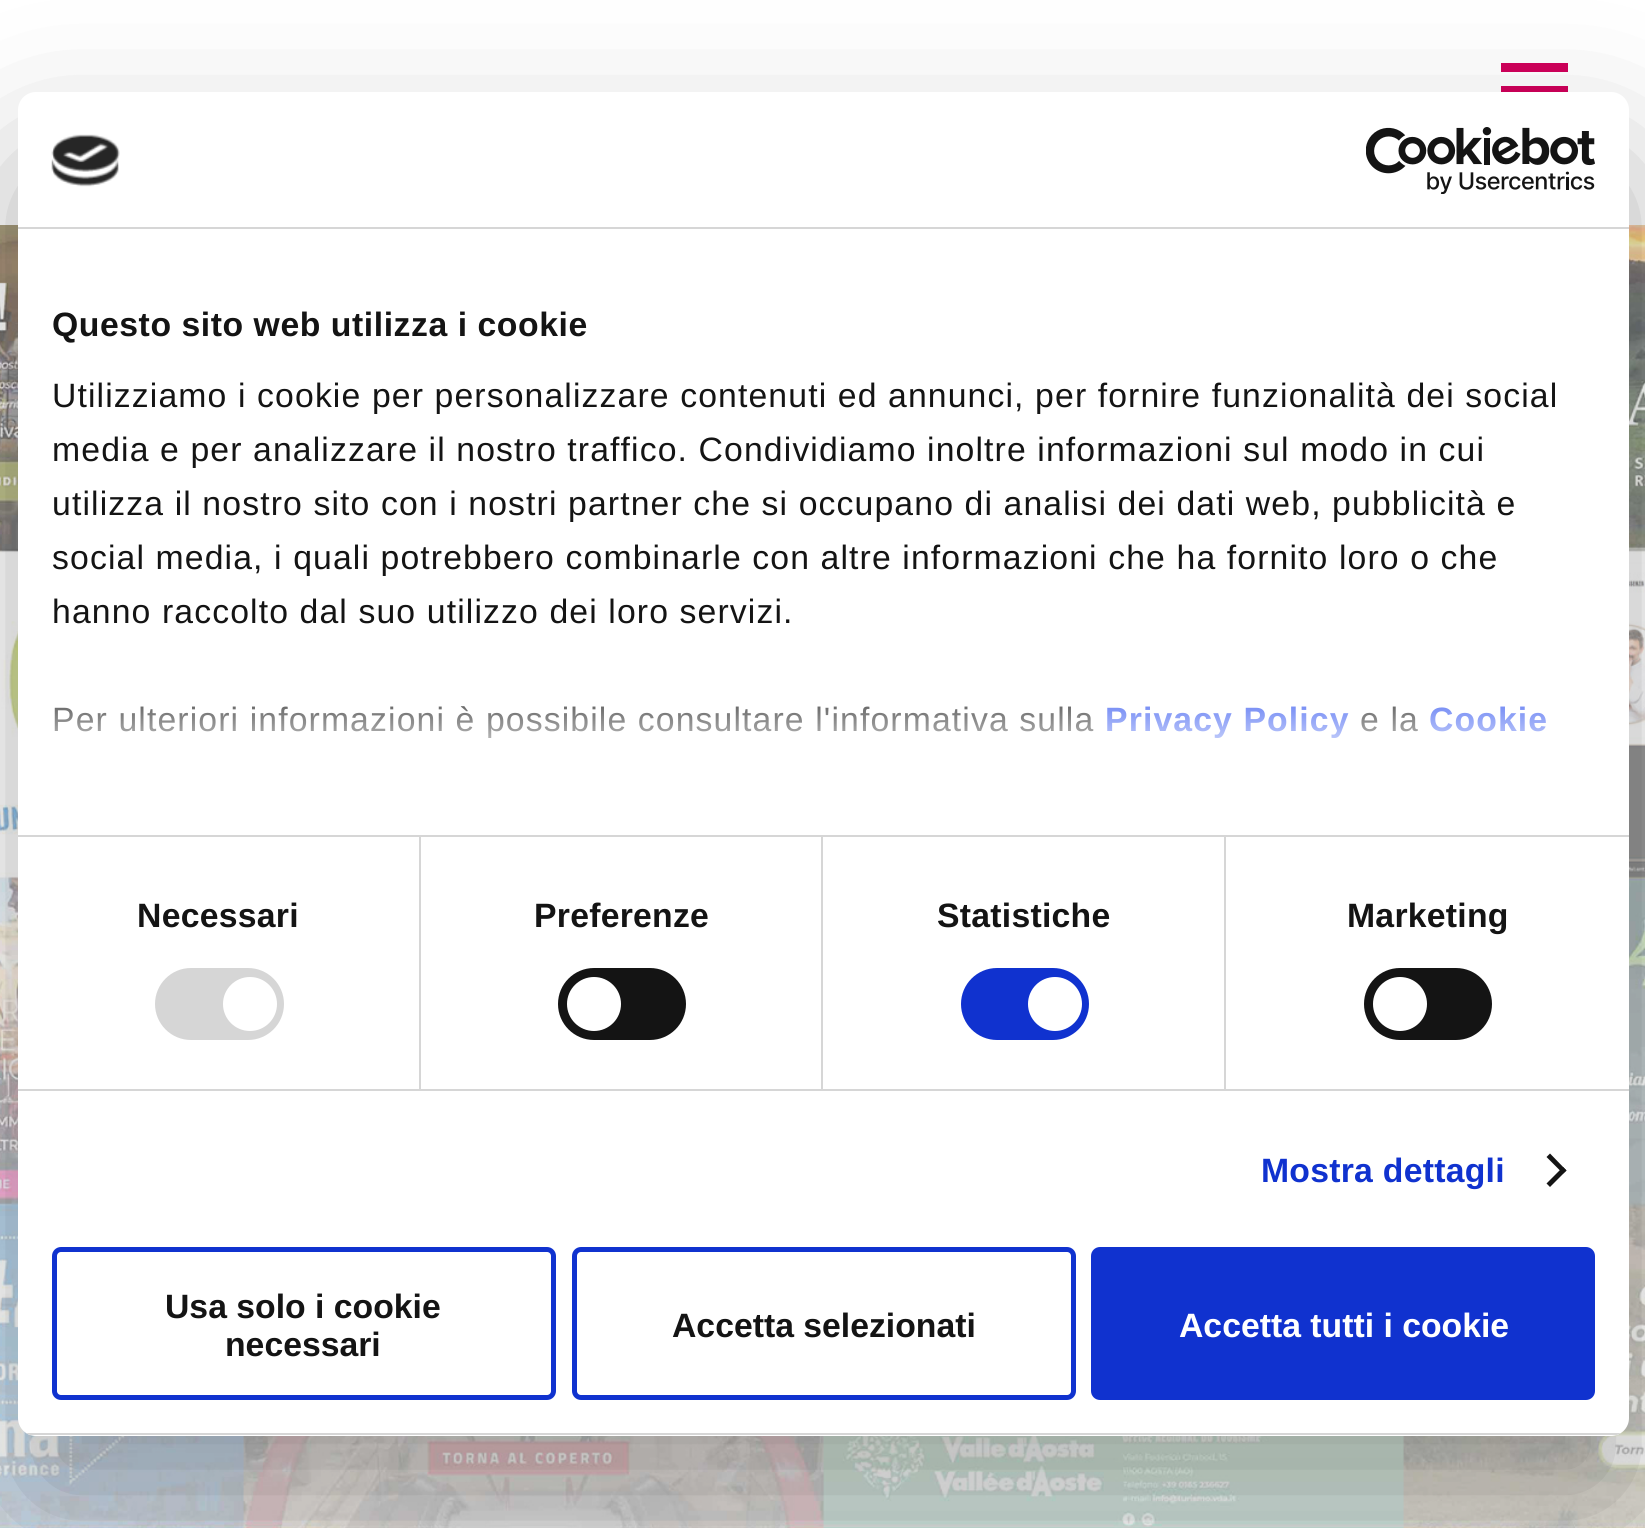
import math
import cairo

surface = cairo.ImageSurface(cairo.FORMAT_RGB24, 1645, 1528)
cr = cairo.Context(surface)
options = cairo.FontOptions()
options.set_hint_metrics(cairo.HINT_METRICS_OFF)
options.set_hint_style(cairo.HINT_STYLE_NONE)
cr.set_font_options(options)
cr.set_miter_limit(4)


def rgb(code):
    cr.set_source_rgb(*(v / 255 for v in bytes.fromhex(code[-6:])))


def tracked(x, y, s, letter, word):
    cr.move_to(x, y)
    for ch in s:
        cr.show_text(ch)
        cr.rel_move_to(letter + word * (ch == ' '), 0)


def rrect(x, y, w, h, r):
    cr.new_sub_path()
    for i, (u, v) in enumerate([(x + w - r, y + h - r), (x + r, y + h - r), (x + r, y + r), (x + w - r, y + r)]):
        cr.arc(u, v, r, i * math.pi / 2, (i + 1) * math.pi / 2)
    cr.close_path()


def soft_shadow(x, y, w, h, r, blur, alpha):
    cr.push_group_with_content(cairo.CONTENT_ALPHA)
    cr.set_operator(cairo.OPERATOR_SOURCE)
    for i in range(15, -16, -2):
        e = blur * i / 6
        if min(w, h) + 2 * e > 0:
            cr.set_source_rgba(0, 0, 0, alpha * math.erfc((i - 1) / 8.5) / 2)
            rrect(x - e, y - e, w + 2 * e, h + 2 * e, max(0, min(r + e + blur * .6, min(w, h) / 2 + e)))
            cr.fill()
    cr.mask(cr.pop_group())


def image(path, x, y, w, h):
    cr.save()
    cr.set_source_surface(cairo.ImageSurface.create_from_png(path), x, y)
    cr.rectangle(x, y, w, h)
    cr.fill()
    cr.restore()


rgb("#ffffff")
cr.paint()
rgb("#d0005a")
cr.rectangle(1501, 63, 67, 9)
cr.fill()
cr.rectangle(1501, 86, 67, 6)
cr.fill()
image("img/1.png", 0, 225, 1645, 1303)
rgb("#000000")
soft_shadow(18, 164, 1611, 1344, 18, 76.5, 0.3)
rgb("#ffffff")
rrect(18, 92, 1611, 1344, 18)
cr.fill()
rgb("#d6d6d6")
cr.rectangle(18, 227, 1611, 2)
cr.fill()
image("img/2.png", 51, 134, 69, 53)
image("img/3.png", 1366, 127, 229, 67)
for x, y, w, h, color in [
    (18, 835, 1611, 2, "#d6d6d6"),
    (18, 1089, 1611, 2, "#d6d6d6"),
    (419, 837, 2, 252, "#d6d6d6"),
]:
    rgb(color)
    cr.rectangle(x, y, w, h)
    cr.fill()
rrect(155, 968, 129, 72, 36)
cr.fill()
rgb("#ffffff")
cr.arc(250, 1004, 27, 0, 2 * math.pi)
cr.fill()
rgb("#d6d6d6")
cr.rectangle(821, 837, 2, 252)
cr.fill()
rgb("#141414")
rrect(558, 968, 128, 72, 36)
cr.fill()
rgb("#ffffff")
cr.arc(594, 1004, 27, 0, 2 * math.pi)
cr.fill()
rgb("#d6d6d6")
cr.rectangle(1224, 837, 2, 252)
cr.fill()
rgb("#1032cf")
rrect(961, 968, 128, 72, 36)
cr.fill()
rgb("#ffffff")
cr.arc(1055, 1004, 27, 0, 2 * math.pi)
cr.fill()
rgb("#141414")
rrect(1364, 968, 128, 72, 36)
cr.fill()
rgb("#ffffff")
cr.arc(1400, 1004, 27, 0, 2 * math.pi)
cr.fill()
rgb("#141414")
cr.new_path()
cr.move_to(1550, 1153.5)
cr.line_to(1566.5, 1170.5)
cr.line_to(1563, 1173.5)
cr.line_to(1546.5, 1157)
cr.close_path()
cr.fill()
cr.new_path()
cr.move_to(1563, 1167)
cr.line_to(1566.5, 1170.5)
cr.line_to(1550, 1187)
cr.line_to(1546.5, 1183.5)
cr.close_path()
cr.fill()
cr.save()
rrect(18, 92, 1611, 1344, 18)
cr.clip()
rgb("#d6d6d6")
cr.rectangle(18, 1433, 1611, 2)
cr.fill()
cr.restore()
rrect(54.5, 1249.5, 499, 148, 6.5)
rgb("#1032cf")
cr.set_line_width(5)
cr.stroke()
rrect(574.5, 1249.5, 499, 148, 6.5)
cr.stroke()
rrect(1093.5, 1249.5, 499, 148, 6.5)
cr.fill_preserve()
cr.stroke()
cr.select_font_face("Liberation Sans", cairo.FONT_SLANT_NORMAL, cairo.FONT_WEIGHT_BOLD)
cr.set_font_size(33.75)
rgb("#141414")
tracked(52, 336, "Questo sito web utilizza i cookie", 0.55, 0)
cr.select_font_face("Liberation Sans")
for x, y, s in [
    (52, 407, "Utilizziamo i cookie per personalizzare contenuti ed annunci, per fornire funzionalità dei social"),
    (52, 461, "media e per analizzare il nostro traffico. Condividiamo inoltre informazioni sul modo in cui"),
    (52, 515, "utilizza il nostro sito con i nostri partner che si occupano di analisi dei dati web, pubblicità e"),
    (52, 569, "social media, i quali potrebbero combinarle con altre informazioni che ha fornito loro o che"),
    (52, 623, "hanno raccolto dal suo utilizzo dei loro servizi."),
    (52, 731, "Per ulteriori informazioni è possibile consultare l'informativa sulla"),
]:
    tracked(x, y, s, 1.12, 0)
cr.select_font_face("Liberation Sans", cairo.FONT_SLANT_NORMAL, cairo.FONT_WEIGHT_BOLD)
rgb("#2a4eef")
tracked(1105, 731, "Privacy Policy", 1.12, 0)
cr.select_font_face("Liberation Sans")
rgb("#141414")
tracked(1360, 731, "e la", 1.12, 0)
cr.select_font_face("Liberation Sans", cairo.FONT_SLANT_NORMAL, cairo.FONT_WEIGHT_BOLD)
rgb("#2a4eef")
tracked(1429, 731, "Cookie", 1.12, 0)
gradient = cairo.LinearGradient(809, 836, 809, 667)
gradient.add_color_stop_rgba(0, 1, 1, 1, 1)
gradient.add_color_stop_rgba(0.5, 1, 1, 1, 0.8)
gradient.add_color_stop_rgba(1, 1, 1, 1, 0)
cr.set_source(gradient)
cr.rectangle(54, 706, 1493, 32)
cr.fill()
rgb("#141414")
for x, y, s in [
    (137, 927, "Necessari"),
    (534, 927, "Preferenze"),
    (937, 927, "Statistiche"),
    (1347, 927, "Marketing"),
]:
    tracked(x, y, s, 0.25, 0)
rgb("#1032cf")
tracked(1261, 1182, "Mostra dettagli", 0.25, 0)
rgb("#141414")
for x, y, s in [
    (165, 1318, "Usa solo i cookie"),
    (225, 1356, "necessari"),
    (672, 1337, "Accetta selezionati"),
]:
    cr.move_to(x, y)
    cr.show_text(s)
rgb("#ffffff")
cr.move_to(1179, 1337)
cr.show_text("Accetta tutti i cookie")
surface.write_to_png("page.png")
